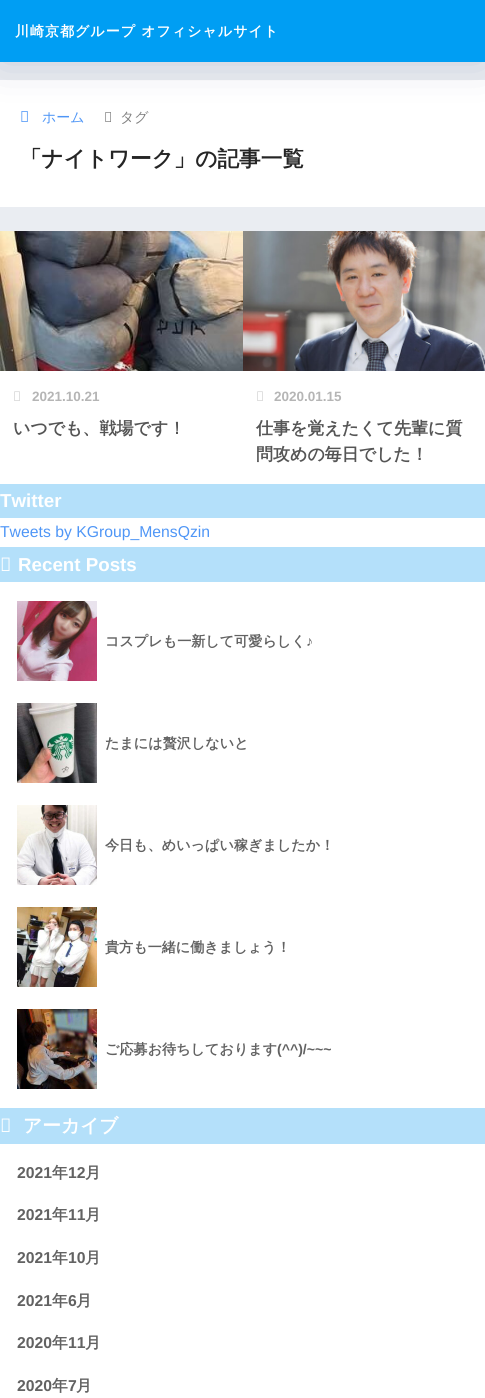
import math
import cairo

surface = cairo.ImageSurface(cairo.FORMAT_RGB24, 485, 1398)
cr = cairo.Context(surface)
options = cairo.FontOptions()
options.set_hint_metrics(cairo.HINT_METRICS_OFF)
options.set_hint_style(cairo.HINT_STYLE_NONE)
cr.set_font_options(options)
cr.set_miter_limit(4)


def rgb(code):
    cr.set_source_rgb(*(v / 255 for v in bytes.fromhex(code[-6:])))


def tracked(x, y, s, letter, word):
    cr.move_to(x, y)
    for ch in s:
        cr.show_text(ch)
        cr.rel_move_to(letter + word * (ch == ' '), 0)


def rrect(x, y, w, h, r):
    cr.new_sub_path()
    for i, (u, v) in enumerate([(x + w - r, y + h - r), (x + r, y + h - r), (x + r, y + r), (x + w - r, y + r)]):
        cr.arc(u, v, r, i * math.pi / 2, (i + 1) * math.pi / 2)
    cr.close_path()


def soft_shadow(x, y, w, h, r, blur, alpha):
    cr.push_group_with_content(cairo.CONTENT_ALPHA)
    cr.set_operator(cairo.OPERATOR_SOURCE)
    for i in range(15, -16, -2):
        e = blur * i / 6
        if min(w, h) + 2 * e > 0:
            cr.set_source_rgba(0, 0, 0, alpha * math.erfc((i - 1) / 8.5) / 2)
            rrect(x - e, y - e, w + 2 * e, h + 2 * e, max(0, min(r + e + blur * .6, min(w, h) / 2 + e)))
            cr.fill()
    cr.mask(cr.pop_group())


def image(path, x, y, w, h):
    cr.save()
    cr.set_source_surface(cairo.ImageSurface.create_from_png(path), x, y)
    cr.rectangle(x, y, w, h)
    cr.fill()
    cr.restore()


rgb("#eaedf2")
cr.paint()
rgb("#ffffff")
cr.rectangle(0, 80, 485, 127)
cr.fill()
image("img/1.png", 21, 111, 7, 11)
image("img/2.png", 105, 112, 6, 10)
rgb("#000c42")
soft_shadow(0, 0, 485, 62, 0, 22.5, 0.15)
rgb("#009ef3")
cr.rectangle(0, 0, 485, 62)
cr.fill()
rgb("#ffffff")
cr.rectangle(0, 371, 485, 113)
cr.fill()
image("img/3.png", 0, 231, 243, 140)
image("img/4.png", 14, 391, 6, 10)
image("img/5.png", 243, 231, 242, 140)
image("img/4.png", 257, 391, 6, 10)
for x, y, w, h, color in [
    (0, 518, 485, 29, "#ffffff"),
    (0, 484, 485, 34, "#b4e0fa"),
    (0, 582, 485, 526, "#ffffff"),
    (0, 547, 485, 35, "#b4e0fa"),
]:
    rgb(color)
    cr.rectangle(x, y, w, h)
    cr.fill()
image("img/6.png", 1, 557, 9, 14)
image("img/7.png", 17, 601, 80, 80)
image("img/8.png", 17, 703, 80, 80)
image("img/9.png", 17, 805, 80, 80)
image("img/10.png", 17, 907, 80, 80)
image("img/11.png", 17, 1009, 80, 80)
rgb("#ffffff")
cr.rectangle(0, 1144, 485, 254)
cr.fill()
rgb("#b4e0fa")
cr.rectangle(0, 1108, 485, 36)
cr.fill()
image("img/6.png", 1, 1118, 9, 14)
cr.select_font_face("WenQuanYi Zen Hei", cairo.FONT_SLANT_NORMAL, cairo.FONT_WEIGHT_BOLD)
cr.set_font_size(14)
rgb("#ffffff")
tracked(15, 36, "川崎京都グループ オフィシャルサイト", 1, 0)
cr.select_font_face("WenQuanYi Zen Hei Medium")
rgb("#4f96f6")
cr.move_to(42, 122)
cr.show_text("ホーム")
rgb("#808080")
cr.move_to(120, 122)
cr.show_text("タグ")
cr.select_font_face("WenQuanYi Zen Hei", cairo.FONT_SLANT_NORMAL, cairo.FONT_WEIGHT_BOLD)
cr.set_font_size(21.6)
rgb("#252525")
cr.move_to(20, 166)
cr.show_text("「ナイトワーク」の記事一覧")
cr.select_font_face("Liberation Sans", cairo.FONT_SLANT_NORMAL, cairo.FONT_WEIGHT_BOLD)
cr.set_font_size(13.5)
rgb("#b5b5b5")
cr.move_to(32, 401)
cr.show_text("2021.10.21")
cr.select_font_face("WenQuanYi Zen Hei", cairo.FONT_SLANT_NORMAL, cairo.FONT_WEIGHT_BOLD)
cr.set_font_size(17)
rgb("#555555")
cr.move_to(13, 434)
cr.show_text("いつでも、戦場です！")
cr.select_font_face("Liberation Sans", cairo.FONT_SLANT_NORMAL, cairo.FONT_WEIGHT_BOLD)
cr.set_font_size(13.5)
rgb("#b5b5b5")
cr.move_to(274, 401)
cr.show_text("2020.01.15")
cr.select_font_face("WenQuanYi Zen Hei", cairo.FONT_SLANT_NORMAL, cairo.FONT_WEIGHT_BOLD)
cr.set_font_size(17)
rgb("#555555")
cr.move_to(256, 434)
cr.show_text("仕事を覚えたくて先輩に質")
cr.move_to(256, 460)
cr.show_text("問攻めの毎日でした！")
cr.select_font_face("Liberation Sans", cairo.FONT_SLANT_NORMAL, cairo.FONT_WEIGHT_BOLD)
cr.set_font_size(18.75)
rgb("#ffffff")
cr.move_to(0, 507)
cr.show_text("Twitter")
cr.select_font_face("Liberation Sans")
cr.set_font_size(15.75)
rgb("#4f96f6")
cr.move_to(0, 537)
cr.show_text("Tweets by KGroup_MensQzin")
cr.select_font_face("Liberation Sans", cairo.FONT_SLANT_NORMAL, cairo.FONT_WEIGHT_BOLD)
cr.set_font_size(18.75)
rgb("#ffffff")
cr.move_to(18, 571)
cr.show_text("Recent Posts")
cr.select_font_face("WenQuanYi Zen Hei", cairo.FONT_SLANT_NORMAL, cairo.FONT_WEIGHT_BOLD)
cr.set_font_size(14.1)
rgb("#626262")
cr.move_to(105, 646)
cr.show_text("コスプレも一新して可愛らしく")
cr.select_font_face("Liberation Sans", cairo.FONT_SLANT_NORMAL, cairo.FONT_WEIGHT_BOLD)
cr.move_to(306, 646)
cr.show_text("♪")
cr.select_font_face("WenQuanYi Zen Hei", cairo.FONT_SLANT_NORMAL, cairo.FONT_WEIGHT_BOLD)
for x, y, s in [
    (105, 748, "たまには贅沢しないと"),
    (105, 850, "今日も、めいっぱい稼ぎましたか！"),
    (105, 952, "貴方も一緒に働きましょう！"),
    (105, 1054, "ご応募お待ちしております"),
]:
    cr.move_to(x, y)
    cr.show_text(s)
cr.select_font_face("Liberation Sans", cairo.FONT_SLANT_NORMAL, cairo.FONT_WEIGHT_BOLD)
cr.move_to(277, 1054)
cr.show_text("(^^)/~~~")
cr.select_font_face("WenQuanYi Zen Hei", cairo.FONT_SLANT_NORMAL, cairo.FONT_WEIGHT_BOLD)
cr.set_font_size(18.75)
rgb("#ffffff")
cr.move_to(23, 1132)
cr.show_text("アーカイブ")
cr.select_font_face("Liberation Sans", cairo.FONT_SLANT_NORMAL, cairo.FONT_WEIGHT_BOLD)
cr.set_font_size(15.75)
rgb("#626262")
cr.move_to(17, 1178)
cr.show_text("2021")
cr.select_font_face("WenQuanYi Zen Hei", cairo.FONT_SLANT_NORMAL, cairo.FONT_WEIGHT_BOLD)
cr.move_to(52, 1178)
cr.show_text("年")
cr.select_font_face("Liberation Sans", cairo.FONT_SLANT_NORMAL, cairo.FONT_WEIGHT_BOLD)
cr.move_to(68, 1178)
cr.show_text("12")
cr.select_font_face("WenQuanYi Zen Hei", cairo.FONT_SLANT_NORMAL, cairo.FONT_WEIGHT_BOLD)
cr.move_to(85, 1178)
cr.show_text("月")
cr.select_font_face("Liberation Sans", cairo.FONT_SLANT_NORMAL, cairo.FONT_WEIGHT_BOLD)
cr.move_to(17, 1220)
cr.show_text("2021")
cr.select_font_face("WenQuanYi Zen Hei", cairo.FONT_SLANT_NORMAL, cairo.FONT_WEIGHT_BOLD)
cr.move_to(52, 1220)
cr.show_text("年")
cr.select_font_face("Liberation Sans", cairo.FONT_SLANT_NORMAL, cairo.FONT_WEIGHT_BOLD)
cr.move_to(68, 1220)
cr.show_text("11")
cr.select_font_face("WenQuanYi Zen Hei", cairo.FONT_SLANT_NORMAL, cairo.FONT_WEIGHT_BOLD)
cr.move_to(85, 1220)
cr.show_text("月")
cr.select_font_face("Liberation Sans", cairo.FONT_SLANT_NORMAL, cairo.FONT_WEIGHT_BOLD)
cr.move_to(17, 1263)
cr.show_text("2021")
cr.select_font_face("WenQuanYi Zen Hei", cairo.FONT_SLANT_NORMAL, cairo.FONT_WEIGHT_BOLD)
cr.move_to(52, 1263)
cr.show_text("年")
cr.select_font_face("Liberation Sans", cairo.FONT_SLANT_NORMAL, cairo.FONT_WEIGHT_BOLD)
cr.move_to(68, 1263)
cr.show_text("10")
cr.select_font_face("WenQuanYi Zen Hei", cairo.FONT_SLANT_NORMAL, cairo.FONT_WEIGHT_BOLD)
cr.move_to(85, 1263)
cr.show_text("月")
cr.select_font_face("Liberation Sans", cairo.FONT_SLANT_NORMAL, cairo.FONT_WEIGHT_BOLD)
cr.move_to(17, 1306)
cr.show_text("2021")
cr.select_font_face("WenQuanYi Zen Hei", cairo.FONT_SLANT_NORMAL, cairo.FONT_WEIGHT_BOLD)
cr.move_to(52, 1306)
cr.show_text("年")
cr.select_font_face("Liberation Sans", cairo.FONT_SLANT_NORMAL, cairo.FONT_WEIGHT_BOLD)
cr.move_to(68, 1306)
cr.show_text("6")
cr.select_font_face("WenQuanYi Zen Hei", cairo.FONT_SLANT_NORMAL, cairo.FONT_WEIGHT_BOLD)
cr.move_to(76, 1306)
cr.show_text("月")
cr.select_font_face("Liberation Sans", cairo.FONT_SLANT_NORMAL, cairo.FONT_WEIGHT_BOLD)
cr.move_to(17, 1348)
cr.show_text("2020")
cr.select_font_face("WenQuanYi Zen Hei", cairo.FONT_SLANT_NORMAL, cairo.FONT_WEIGHT_BOLD)
cr.move_to(52, 1348)
cr.show_text("年")
cr.select_font_face("Liberation Sans", cairo.FONT_SLANT_NORMAL, cairo.FONT_WEIGHT_BOLD)
cr.move_to(68, 1348)
cr.show_text("11")
cr.select_font_face("WenQuanYi Zen Hei", cairo.FONT_SLANT_NORMAL, cairo.FONT_WEIGHT_BOLD)
cr.move_to(85, 1348)
cr.show_text("月")
cr.select_font_face("Liberation Sans", cairo.FONT_SLANT_NORMAL, cairo.FONT_WEIGHT_BOLD)
cr.move_to(17, 1391)
cr.show_text("2020")
cr.select_font_face("WenQuanYi Zen Hei", cairo.FONT_SLANT_NORMAL, cairo.FONT_WEIGHT_BOLD)
cr.move_to(52, 1391)
cr.show_text("年")
cr.select_font_face("Liberation Sans", cairo.FONT_SLANT_NORMAL, cairo.FONT_WEIGHT_BOLD)
cr.move_to(68, 1391)
cr.show_text("7")
cr.select_font_face("WenQuanYi Zen Hei", cairo.FONT_SLANT_NORMAL, cairo.FONT_WEIGHT_BOLD)
cr.move_to(76, 1391)
cr.show_text("月")
surface.write_to_png("page.png")
